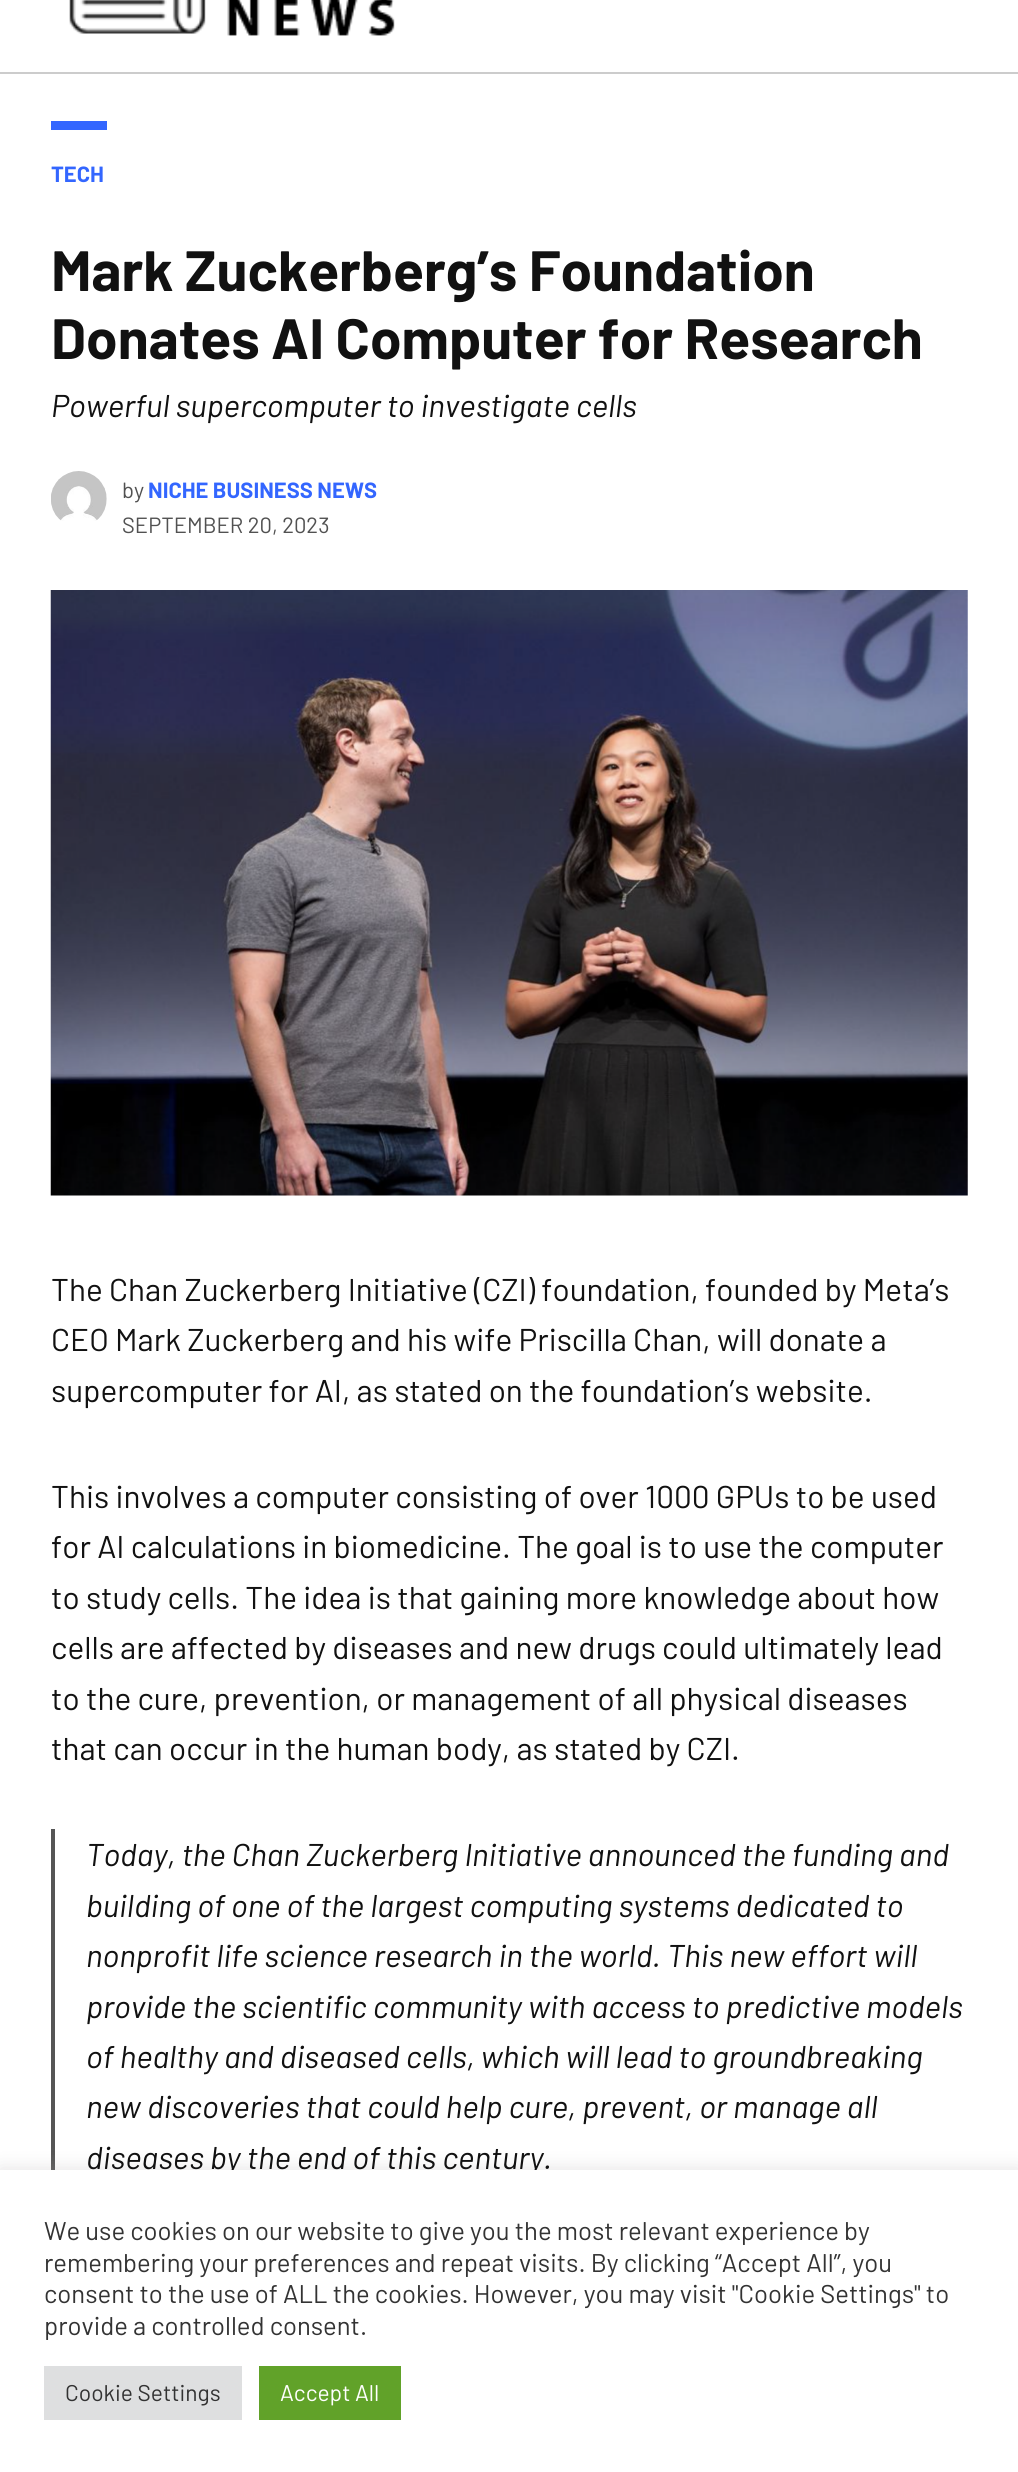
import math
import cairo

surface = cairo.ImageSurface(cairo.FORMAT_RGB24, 1018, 2472)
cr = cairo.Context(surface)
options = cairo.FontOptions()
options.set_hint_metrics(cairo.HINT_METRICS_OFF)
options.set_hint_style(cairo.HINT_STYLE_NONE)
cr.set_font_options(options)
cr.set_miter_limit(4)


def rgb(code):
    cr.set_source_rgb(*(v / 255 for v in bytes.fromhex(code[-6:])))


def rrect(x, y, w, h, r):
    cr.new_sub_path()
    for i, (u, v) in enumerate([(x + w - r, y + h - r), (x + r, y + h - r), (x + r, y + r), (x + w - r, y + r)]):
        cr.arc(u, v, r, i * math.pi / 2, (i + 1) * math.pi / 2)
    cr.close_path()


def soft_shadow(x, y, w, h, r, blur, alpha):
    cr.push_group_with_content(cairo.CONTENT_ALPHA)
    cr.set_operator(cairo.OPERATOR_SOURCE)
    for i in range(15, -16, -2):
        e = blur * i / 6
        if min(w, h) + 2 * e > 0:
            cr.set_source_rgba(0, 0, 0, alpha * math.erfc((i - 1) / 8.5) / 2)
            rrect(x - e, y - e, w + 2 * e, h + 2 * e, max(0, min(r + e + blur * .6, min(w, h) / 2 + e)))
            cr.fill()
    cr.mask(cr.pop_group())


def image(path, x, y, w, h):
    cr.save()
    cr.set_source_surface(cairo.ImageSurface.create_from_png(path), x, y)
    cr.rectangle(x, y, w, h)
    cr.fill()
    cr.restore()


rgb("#ffffff")
cr.paint()
rgb("#cccccc")
cr.rectangle(0, 72, 1018, 2)
cr.fill()
image("img/1.png", 69, 0, 326, 36)
rgb("#3366ff")
cr.rectangle(51, 121, 56, 9)
cr.fill()
image("img/2.png", 51, 471, 56, 50)
image("img/3.png", 50, 590, 918, 606)
rgb("#555555")
cr.rectangle(51, 1829, 4, 341)
cr.fill()
rgb("#acabab")
soft_shadow(0, 2168, 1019, 303, 0, 9, 0.3)
cr.select_font_face("Barlow", cairo.FONT_SLANT_NORMAL, cairo.FONT_WEIGHT_BOLD)
cr.set_font_size(22)
rgb("#3366ff")
cr.move_to(51, 182)
cr.show_text("TECH")
cr.set_font_size(56.75)
rgb("#111111")
cr.move_to(51, 291)
cr.show_text("Mark Zuckerberg’s Foundation")
cr.move_to(51, 359)
cr.show_text("Donates AI Computer for Research")
cr.select_font_face("Barlow", cairo.FONT_SLANT_ITALIC)
cr.set_font_size(31.5)
cr.move_to(51, 417)
cr.show_text("Powerful supercomputer to investigate cells")
cr.select_font_face("Barlow")
cr.set_font_size(22)
rgb("#515151")
cr.move_to(122, 498)
cr.show_text("by")
cr.select_font_face("Barlow", cairo.FONT_SLANT_NORMAL, cairo.FONT_WEIGHT_BOLD)
rgb("#3366ff")
cr.move_to(148, 498)
cr.show_text("NICHE BUSINESS NEWS")
cr.select_font_face("Barlow")
rgb("#515151")
cr.move_to(122, 533)
cr.show_text("SEPTEMBER 20, 2023")
cr.set_font_size(31.5)
rgb("#111111")
for x, y, s in [
    (51, 1301, "The Chan Zuckerberg Initiative (CZI) foundation, founded by Meta’s"),
    (51, 1351, "CEO Mark Zuckerberg and his wife Priscilla Chan, will donate a"),
    (51, 1402, "supercomputer for AI, as stated on the foundation’s website."),
    (51, 1508, "This involves a computer consisting of over 1000 GPUs to be used"),
    (51, 1558, "for AI calculations in biomedicine. The goal is to use the computer"),
    (51, 1609, "to study cells. The idea is that gaining more knowledge about how"),
    (51, 1659, "cells are affected by diseases and new drugs could ultimately lead"),
    (51, 1710, "to the cure, prevention, or management of all physical diseases"),
    (51, 1760, "that can occur in the human body, as stated by CZI."),
]:
    cr.move_to(x, y)
    cr.show_text(s)
cr.select_font_face("Barlow", cairo.FONT_SLANT_ITALIC)
for x, y, s in [
    (86, 1866, "Today, the Chan Zuckerberg Initiative announced the funding and"),
    (86, 1917, "building of one of the largest computing systems dedicated to"),
    (86, 1967, "nonprofit life science research in the world. This new effort will"),
    (86, 2018, "provide the scientific community with access to predictive models"),
    (86, 2068, "of healthy and diseased cells, which will lead to groundbreaking"),
    (86, 2118, "new discoveries that could help cure, prevent, or manage all"),
    (86, 2169, "diseases by the end of this century."),
]:
    cr.move_to(x, y)
    cr.show_text(s)
rgb("#ffffff")
cr.rectangle(0, 2170, 1018, 302)
cr.fill()
cr.select_font_face("Barlow")
cr.set_font_size(25.65)
rgb("#333333")
for x, y, s in [
    (44, 2240, "We use cookies on our website to give you the most relevant experience by"),
    (44, 2272, "remembering your preferences and repeat visits. By clicking “Accept All”, you"),
    (44, 2303, "consent to the use of ALL the cookies. However, you may visit \"Cookie Settings\" to"),
    (44, 2335, "provide a controlled consent."),
]:
    cr.move_to(x, y)
    cr.show_text(s)
rgb("#dedfe0")
cr.rectangle(44, 2366, 198, 54)
cr.fill()
cr.set_font_size(22.75)
rgb("#333333")
cr.move_to(65, 2401)
cr.show_text("Cookie Settings")
rgb("#61a229")
cr.rectangle(259, 2366, 142, 54)
cr.fill()
rgb("#ffffff")
cr.move_to(280, 2401)
cr.show_text("Accept All")
surface.write_to_png("page.png")
